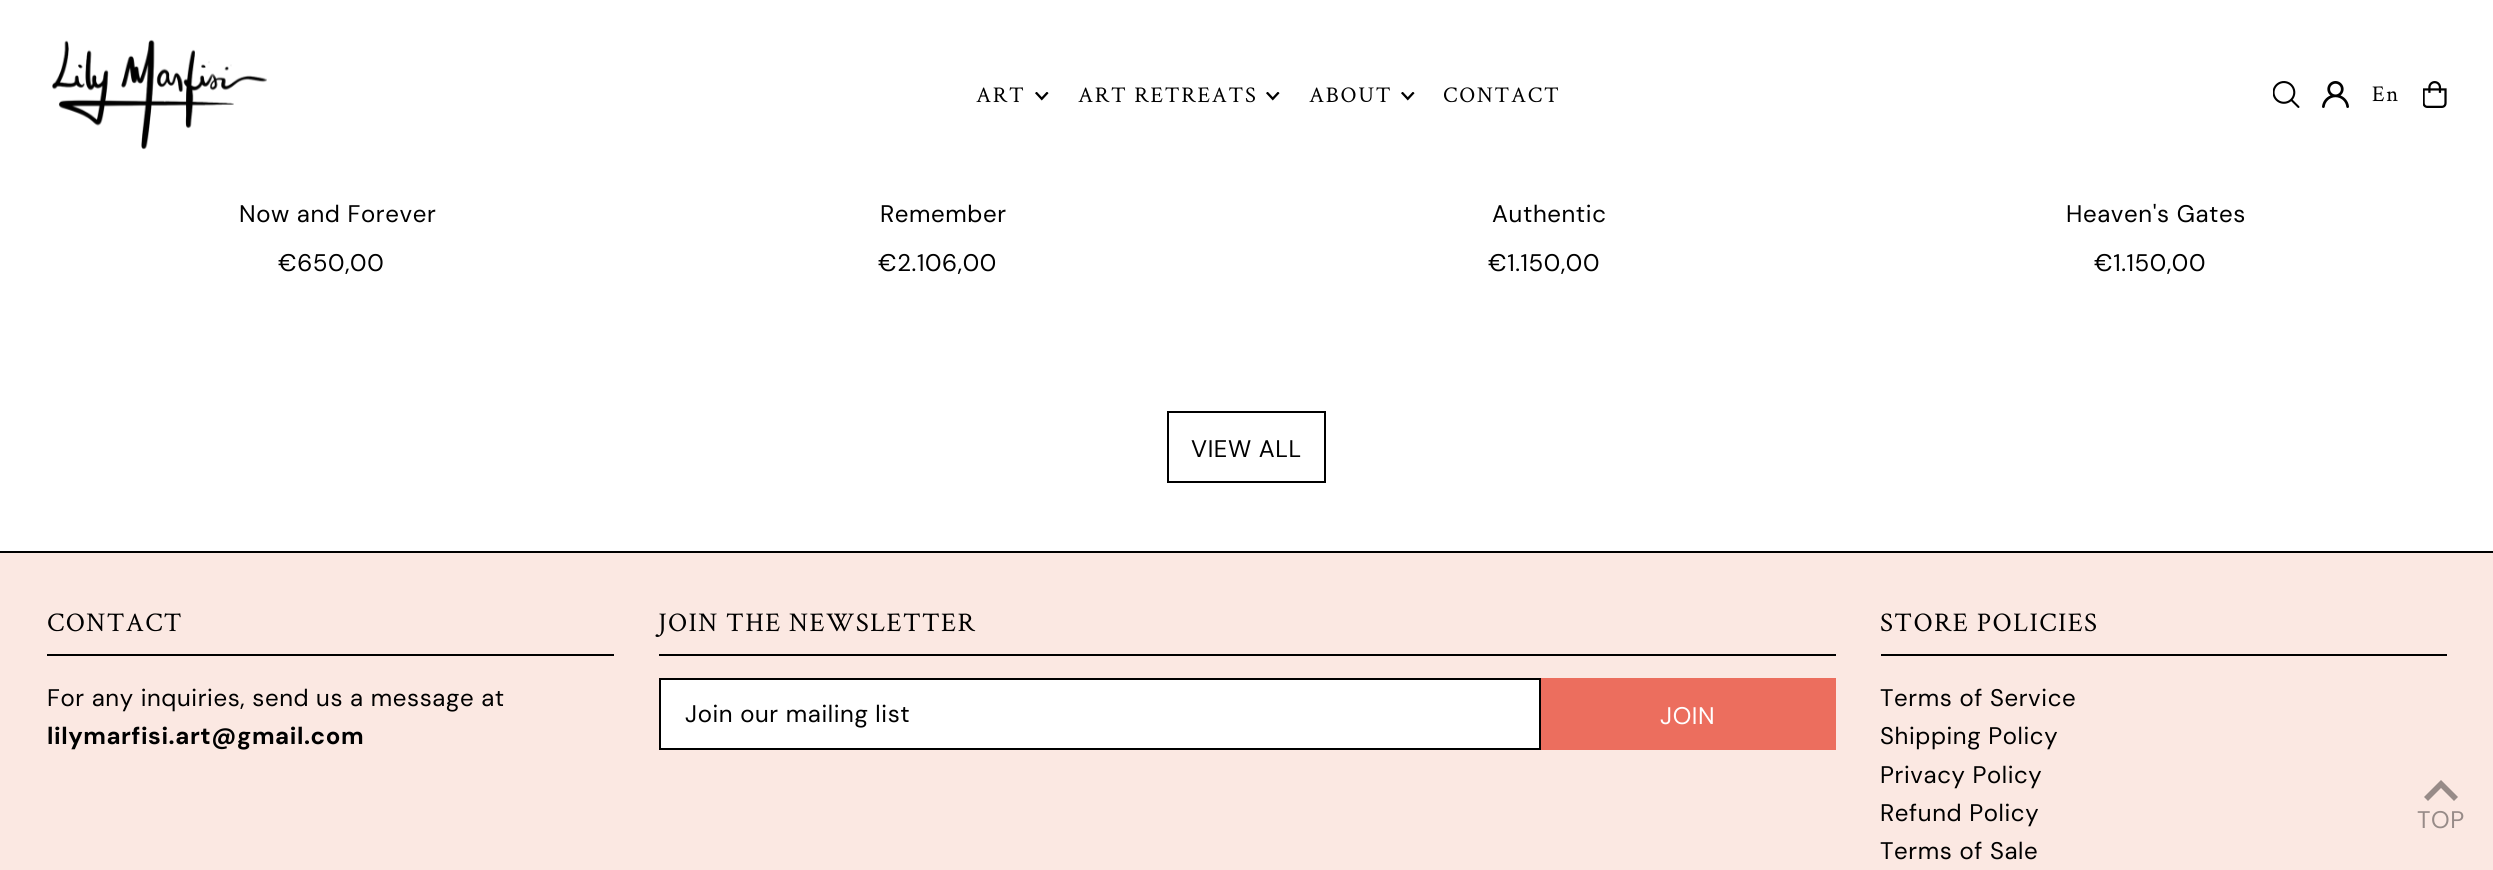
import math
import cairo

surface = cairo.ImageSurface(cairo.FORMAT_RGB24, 2493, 870)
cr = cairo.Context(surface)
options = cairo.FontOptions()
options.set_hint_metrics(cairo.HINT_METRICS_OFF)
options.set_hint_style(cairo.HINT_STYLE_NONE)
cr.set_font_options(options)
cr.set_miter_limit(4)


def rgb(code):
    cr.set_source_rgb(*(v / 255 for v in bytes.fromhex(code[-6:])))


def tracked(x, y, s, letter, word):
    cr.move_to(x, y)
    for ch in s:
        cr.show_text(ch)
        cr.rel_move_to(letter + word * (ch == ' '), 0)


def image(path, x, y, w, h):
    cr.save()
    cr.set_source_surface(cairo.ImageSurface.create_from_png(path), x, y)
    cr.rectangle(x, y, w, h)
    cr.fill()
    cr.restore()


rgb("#ffffff")
cr.paint()
image("img/1.png", 52, 39, 215, 111)
image("img/2.png", 1035, 92, 14, 9)
image("img/2.png", 1266, 92, 14, 9)
image("img/2.png", 1401, 92, 14, 9)
image("img/3.png", 2273, 81, 27, 27)
image("img/4.png", 2322, 81, 27, 27)
image("img/5.png", 2423, 81, 24, 27)
cr.rectangle(1168, 412, 157, 70)
rgb("#000000")
cr.stroke()
for x, y, w, h, color in [
    (0, 553, 2493, 317, "#fbe8e2"),
    (0, 551, 2493, 2, "#000000"),
    (47, 654, 567, 2, "#000000"),
    (659, 654, 1177, 2, "#000000"),
]:
    rgb(color)
    cr.rectangle(x, y, w, h)
    cr.fill()
rgb("#ffffff")
cr.rectangle(660, 679, 880, 70)
cr.fill_preserve()
rgb("#000000")
cr.stroke()
rgb("#ec6e5e")
cr.rectangle(1541, 678, 295, 72)
cr.fill()
rgb("#000000")
cr.rectangle(1881, 654, 566, 2)
cr.fill()
rgb("#978b88")
cr.new_path()
cr.move_to(2441, 780)
cr.line_to(2424, 797)
cr.line_to(2428, 801)
cr.line_to(2441, 788)
cr.line_to(2454, 801)
cr.line_to(2458, 797)
cr.close_path()
cr.fill()
cr.select_font_face("Crimson Text")
cr.set_font_size(22.5)
rgb("#000000")
for x, y, s in [
    (976, 102, "ART"),
    (1078, 102, "ART RETREATS"),
    (1309, 102, "ABOUT"),
    (1443, 102, "CONTACT"),
    (2372, 101, "En"),
]:
    tracked(x, y, s, 1.75, 0)
cr.select_font_face("DM Sans")
cr.set_font_size(24)
for x, y, s in [
    (239, 222, "Now and Forever"),
    (278, 271, "€650,00"),
    (880, 222, "Remember"),
    (878, 271, "€2.106,00"),
    (1492, 222, "Authentic"),
    (1488, 271, "€1.150,00"),
    (2066, 222, "Heaven's Gates"),
    (2094, 271, "€1.150,00"),
    (1191, 457, "VIEW ALL"),
]:
    tracked(x, y, s, 0.6, 0)
cr.select_font_face("Crimson Text")
cr.set_font_size(27)
tracked(47, 631, "CONTACT", 1.4, 0)
cr.select_font_face("DM Sans")
cr.set_font_size(24)
tracked(47, 706, "For any inquiries, send us a message at", 0.6, 0)
cr.select_font_face("DM Sans", cairo.FONT_SLANT_NORMAL, cairo.FONT_WEIGHT_BOLD)
tracked(47, 744, "lilymarfisi.art@gmail.com", 0.6, 0)
cr.select_font_face("Crimson Text")
cr.set_font_size(27)
tracked(658, 631, "JOIN THE NEWSLETTER", 1.4, 0)
cr.select_font_face("DM Sans")
cr.set_font_size(24)
tracked(685, 722, "Join our mailing list", 0.6, 0)
rgb("#ffffff")
tracked(1660, 724, "JOIN", 0.6, 0)
cr.select_font_face("Crimson Text")
cr.set_font_size(27)
rgb("#000000")
tracked(1880, 631, "STORE POLICIES", 1.4, 0)
cr.select_font_face("DM Sans")
cr.set_font_size(24)
for x, y, s in [
    (1880, 706, "Terms of Service"),
    (1880, 744, "Shipping Policy"),
    (1880, 783, "Privacy Policy"),
    (1880, 821, "Refund Policy"),
    (1880, 859, "Terms of Sale"),
]:
    tracked(x, y, s, 0.6, 0)
rgb("#978b88")
tracked(2417, 828, "TOP", 0.6, 0)
surface.write_to_png("page.png")
